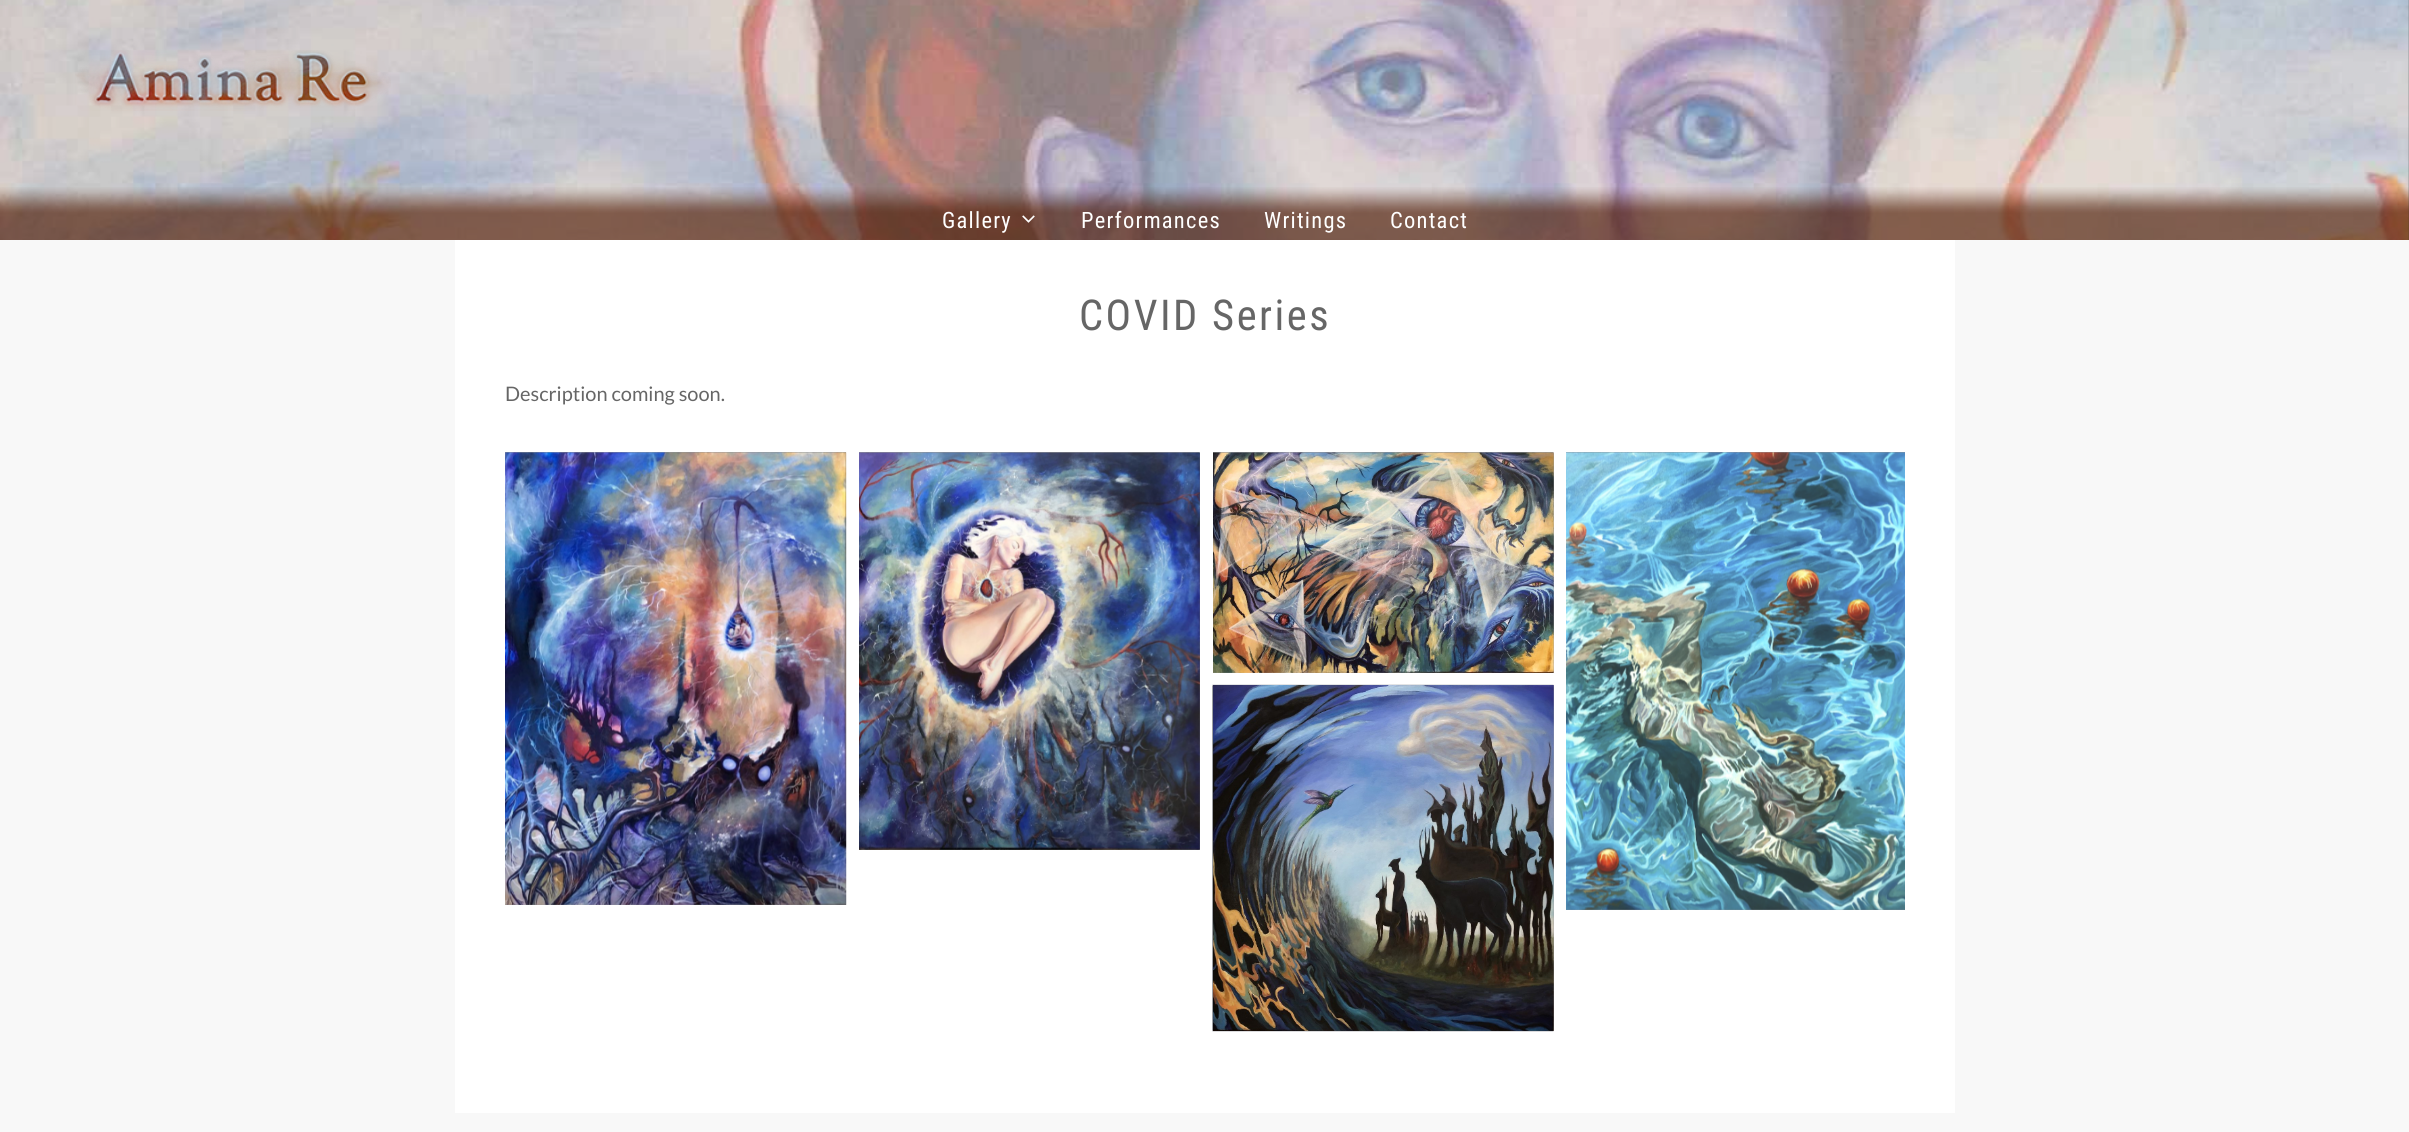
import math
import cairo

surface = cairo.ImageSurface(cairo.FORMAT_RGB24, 2409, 1132)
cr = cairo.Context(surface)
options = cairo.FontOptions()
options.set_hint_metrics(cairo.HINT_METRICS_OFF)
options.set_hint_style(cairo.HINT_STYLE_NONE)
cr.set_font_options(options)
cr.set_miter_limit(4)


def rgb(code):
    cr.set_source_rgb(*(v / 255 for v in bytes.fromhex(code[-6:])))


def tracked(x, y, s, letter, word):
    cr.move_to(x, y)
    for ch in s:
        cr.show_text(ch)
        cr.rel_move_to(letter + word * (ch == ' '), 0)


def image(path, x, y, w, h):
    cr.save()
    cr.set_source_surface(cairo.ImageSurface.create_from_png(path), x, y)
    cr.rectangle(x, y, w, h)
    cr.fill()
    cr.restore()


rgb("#f8f8f8")
cr.paint()
image("img/1.png", 0, 0, 2409, 240)
image("img/2.png", 75, 50, 316, 61)
image("img/3.png", 0, 187, 2409, 53)
image("img/4.png", 1022, 215, 13, 8)
rgb("#ffffff")
cr.rectangle(455, 240, 1500, 873)
cr.fill()
image("img/5.png", 505, 452, 341, 453)
image("img/6.png", 505, 452, 342, 453)
image("img/7.png", 859, 452, 341, 398)
image("img/8.png", 859, 452, 341, 398)
image("img/9.png", 1213, 452, 341, 221)
image("img/10.png", 1213, 452, 341, 221)
image("img/11.png", 1566, 452, 339, 458)
image("img/12.png", 1566, 452, 339, 458)
image("img/13.png", 1212, 684, 342, 348)
image("img/14.png", 1213, 685, 341, 346)
cr.select_font_face("Roboto Condensed")
cr.set_font_size(22.5)
for x, y, s in [
    (942, 228, "Gallery"),
    (1081, 228, "Performances"),
    (1264, 228, "Writings"),
    (1390, 228, "Contact"),
]:
    tracked(x, y, s, 1.25, 0)
cr.set_font_size(42.5)
rgb("#666666")
tracked(1079, 330, "COVID Series", 2.5, 0)
cr.select_font_face("Lato")
cr.set_font_size(20)
cr.move_to(505, 401)
cr.show_text("Description coming soon.")
surface.write_to_png("page.png")
